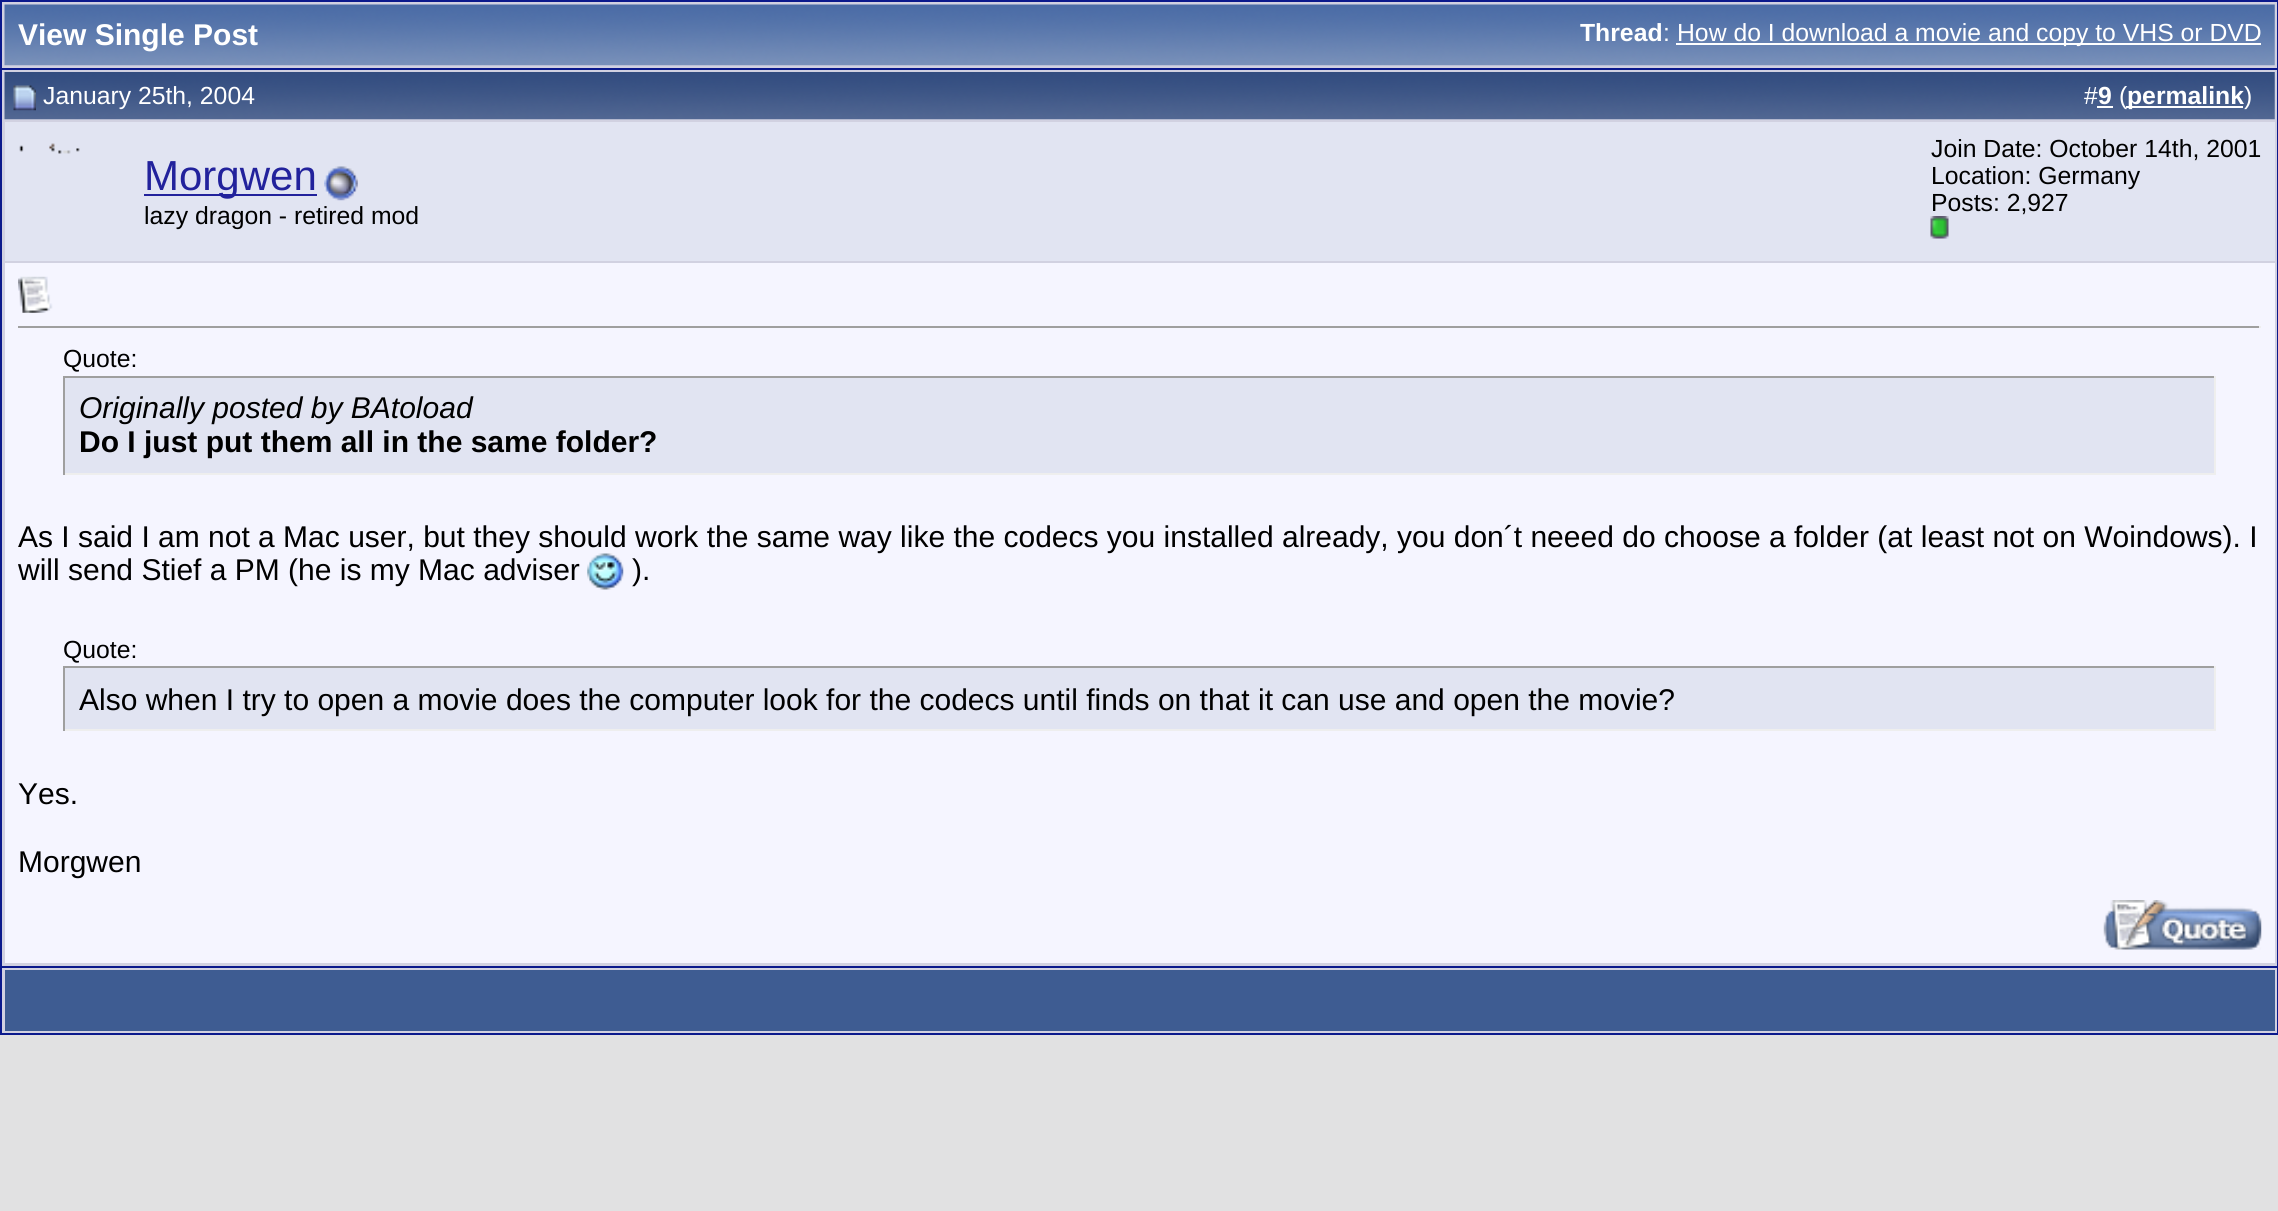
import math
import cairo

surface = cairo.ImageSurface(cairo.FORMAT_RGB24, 2278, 1211)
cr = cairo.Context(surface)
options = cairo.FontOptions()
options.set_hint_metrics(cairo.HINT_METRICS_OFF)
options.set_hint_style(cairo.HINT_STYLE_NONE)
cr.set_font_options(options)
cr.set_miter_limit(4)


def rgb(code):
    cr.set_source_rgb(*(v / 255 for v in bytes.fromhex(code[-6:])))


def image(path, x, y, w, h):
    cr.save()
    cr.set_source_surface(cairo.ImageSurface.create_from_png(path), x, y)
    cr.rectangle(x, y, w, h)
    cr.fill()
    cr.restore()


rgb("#e1e1e2")
cr.paint()
for x, y, w, h, color in [
    (2, 2, 2275, 66, "#d1d1e1"),
    (0, 0, 2278, 2, "#0b198c"),
    (2277, 0, 1, 68, "#0b198c"),
    (0, 0, 2, 68, "#0b198c"),
]:
    rgb(color)
    cr.rectangle(x, y, w, h)
    cr.fill()
image("img/1.png", 4, 4, 2271, 62)
rgb("#ffffff")
cr.rectangle(1676, 43, 585, 2)
cr.fill()
rgb("#d1d1e1")
cr.rectangle(1, 69, 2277, 898)
cr.fill_preserve()
rgb("#0b198c")
cr.stroke()
image("img/2.png", 4, 72, 2271, 48)
image("img/3.png", 13, 85, 23, 26)
for x, y, w, h, color in [
    (2097, 106, 16, 2, "#ffffff"),
    (2126, 106, 117, 2, "#ffffff"),
    (5, 122, 2270, 139, "#e1e4f2"),
]:
    rgb(color)
    cr.rectangle(x, y, w, h)
    cr.fill()
image("img/4.png", 19, 143, 61, 11)
image("img/5.png", 1930, 216, 19, 23)
rgb("#22229c")
cr.rectangle(144, 194, 173, 2)
cr.fill()
image("img/6.png", 324, 166, 34, 35)
rgb("#f5f5ff")
cr.rectangle(5, 263, 2270, 700)
cr.fill()
image("img/7.png", 18, 276, 35, 37)
for x, y, w, h, color in [
    (18, 326, 2243, 2, "#9f9f9f"),
    (2259, 326, 2, 2, "#eeeeee"),
    (65, 378, 2149, 95, "#e1e4f2"),
    (63, 376, 2153, 2, "#9f9f9f"),
    (2214, 376, 2, 99, "#eeeeee"),
    (63, 473, 2153, 2, "#eeeeee"),
    (63, 376, 2, 99, "#9f9f9f"),
    (65, 668, 2149, 61, "#e1e4f2"),
    (63, 666, 2153, 2, "#9f9f9f"),
    (2214, 666, 2, 65, "#eeeeee"),
    (63, 729, 2153, 2, "#eeeeee"),
    (63, 666, 2, 65, "#9f9f9f"),
]:
    rgb(color)
    cr.rectangle(x, y, w, h)
    cr.fill()
image("img/9.png", 2103, 900, 159, 50)
for x, y, w, h, color in [
    (2, 968, 2275, 65, "#d1d1e1"),
    (2277, 968, 1, 67, "#0b198c"),
    (0, 1033, 2278, 2, "#0b198c"),
    (0, 968, 2, 67, "#0b198c"),
    (5, 970, 2270, 61, "#3e5c92"),
]:
    rgb(color)
    cr.rectangle(x, y, w, h)
    cr.fill()
cr.select_font_face("Liberation Sans", cairo.FONT_SLANT_NORMAL, cairo.FONT_WEIGHT_BOLD)
cr.set_font_size(30)
rgb("#ffffff")
cr.move_to(18, 45)
cr.show_text("View Single Post")
cr.set_font_size(24.75)
cr.move_to(1580, 41)
cr.show_text("Thread")
cr.select_font_face("Liberation Sans")
for x, y, s in [
    (1663, 41, ":"),
    (1677, 41, "How do I download a movie and copy to VHS or DVD"),
    (43, 104, "January 25th, 2004"),
    (2084, 104, "#"),
]:
    cr.move_to(x, y)
    cr.show_text(s)
cr.select_font_face("Liberation Sans", cairo.FONT_SLANT_NORMAL, cairo.FONT_WEIGHT_BOLD)
cr.move_to(2098, 104)
cr.show_text("9")
cr.select_font_face("Liberation Sans")
cr.move_to(2119, 104)
cr.show_text("(")
cr.select_font_face("Liberation Sans", cairo.FONT_SLANT_NORMAL, cairo.FONT_WEIGHT_BOLD)
cr.move_to(2127, 104)
cr.show_text("permalink")
cr.select_font_face("Liberation Sans")
cr.move_to(2244, 104)
cr.show_text(")")
rgb("#000000")
for x, y, s in [
    (1931, 157, "Join Date: October 14th, 2001"),
    (1931, 184, "Location: Germany"),
    (1931, 211, "Posts: 2,927"),
]:
    cr.move_to(x, y)
    cr.show_text(s)
cr.set_font_size(42)
rgb("#22229c")
cr.move_to(144, 190)
cr.show_text("Morgwen")
cr.set_font_size(24.75)
rgb("#000000")
cr.move_to(144, 224)
cr.show_text("lazy dragon - retired mod")
cr.move_to(63, 367)
cr.show_text("Quote:")
cr.select_font_face("Liberation Sans", cairo.FONT_SLANT_ITALIC)
cr.set_font_size(30)
cr.move_to(79, 418)
cr.show_text("Originally posted by BAtoload")
cr.select_font_face("Liberation Sans", cairo.FONT_SLANT_NORMAL, cairo.FONT_WEIGHT_BOLD)
cr.move_to(79, 452)
cr.show_text("Do I just put them all in the same folder?")
cr.select_font_face("Liberation Sans")
cr.move_to(18, 547)
cr.show_text("As I said I am not a Mac user, but they should work the same way like the codecs you installed already, you don´t neeed do choose a folder (at least not on Woindows). I")
cr.move_to(18, 580)
cr.show_text("will send Stief a PM (he is my Mac adviser")
image("img/8.png", 587, 553, 37, 37)
cr.move_to(632, 580)
cr.show_text(").")
cr.set_font_size(24.75)
cr.move_to(63, 658)
cr.show_text("Quote:")
cr.set_font_size(30)
for x, y, s in [
    (79, 710, "Also when I try to open a movie does the computer look for the codecs until finds on that it can use and open the movie?"),
    (18, 804, "Yes."),
    (18, 872, "Morgwen"),
]:
    cr.move_to(x, y)
    cr.show_text(s)
surface.write_to_png("page.png")
